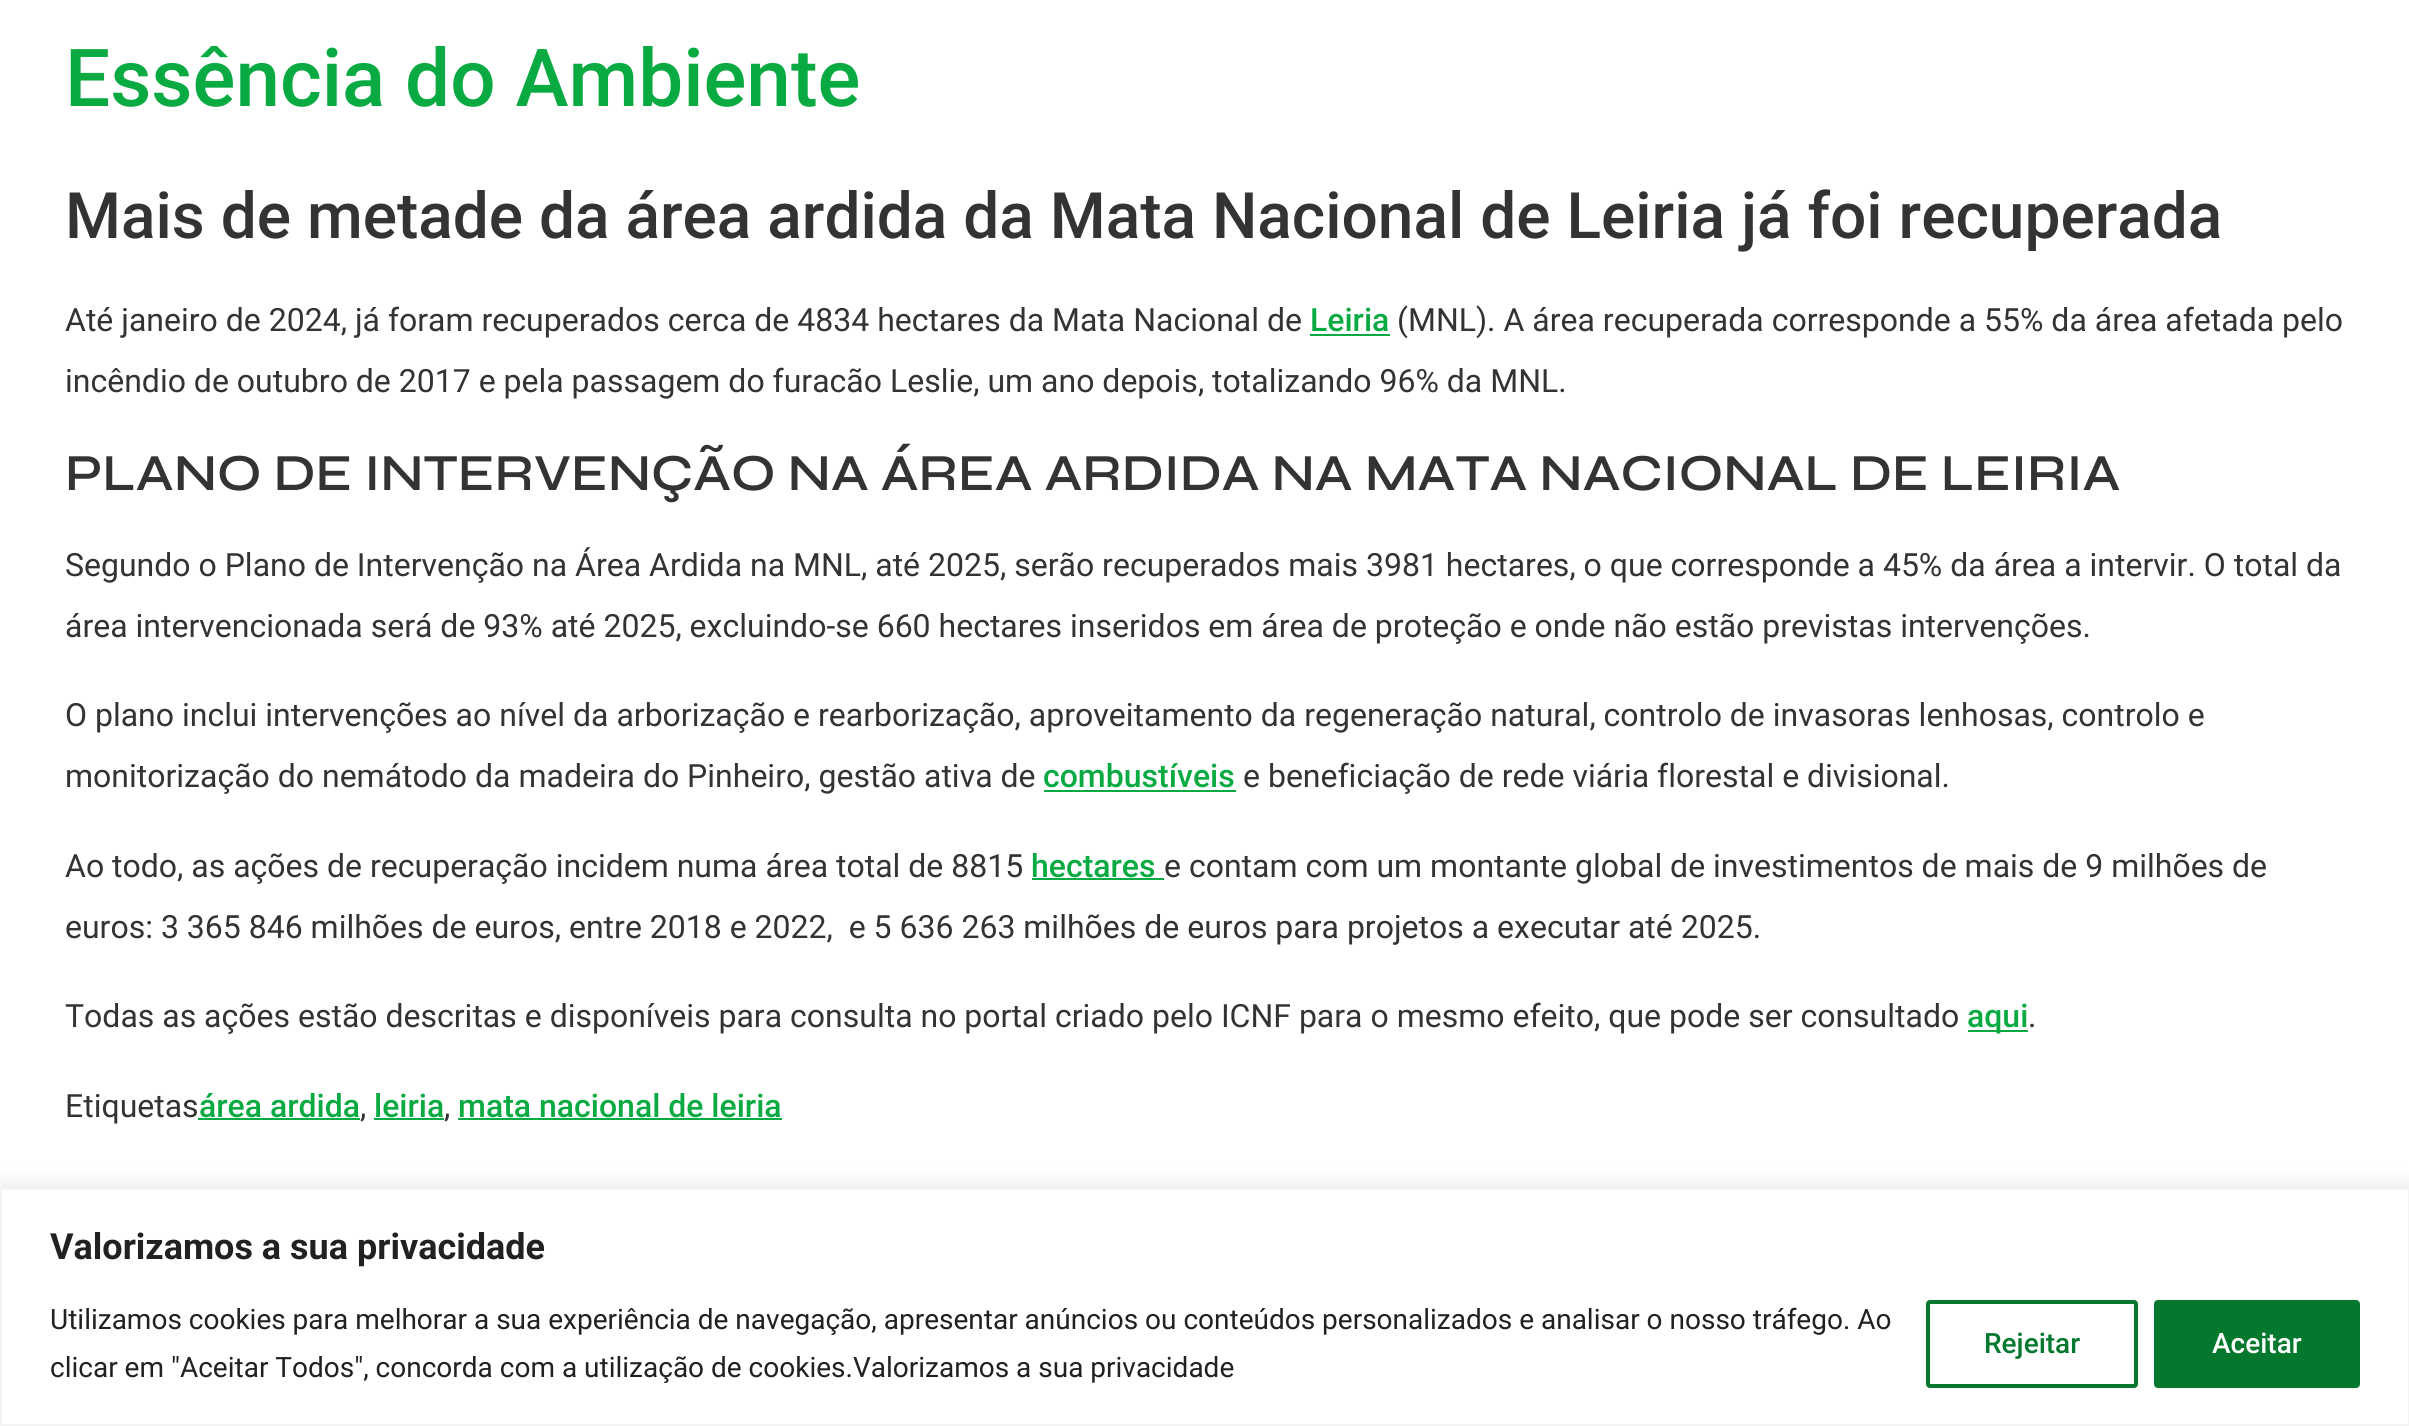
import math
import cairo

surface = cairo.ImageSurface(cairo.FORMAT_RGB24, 2409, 1426)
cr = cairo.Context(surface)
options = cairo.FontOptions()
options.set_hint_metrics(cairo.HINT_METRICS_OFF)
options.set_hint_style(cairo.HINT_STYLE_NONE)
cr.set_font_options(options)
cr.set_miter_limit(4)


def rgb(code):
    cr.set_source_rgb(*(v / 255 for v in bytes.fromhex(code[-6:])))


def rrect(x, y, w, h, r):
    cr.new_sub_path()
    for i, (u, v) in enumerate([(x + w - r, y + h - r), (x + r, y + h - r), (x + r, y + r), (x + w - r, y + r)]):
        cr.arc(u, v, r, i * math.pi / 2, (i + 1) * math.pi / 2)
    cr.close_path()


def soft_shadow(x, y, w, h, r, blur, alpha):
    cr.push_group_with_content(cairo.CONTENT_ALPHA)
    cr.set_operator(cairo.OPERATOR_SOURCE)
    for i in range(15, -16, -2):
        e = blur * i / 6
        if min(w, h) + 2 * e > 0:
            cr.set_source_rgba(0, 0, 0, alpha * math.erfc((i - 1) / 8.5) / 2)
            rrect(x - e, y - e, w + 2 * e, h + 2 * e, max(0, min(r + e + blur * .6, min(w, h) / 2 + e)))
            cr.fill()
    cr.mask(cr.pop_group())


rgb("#ffffff")
cr.paint()
for x, y, w, h, color in [
    (1310, 334, 80, 2, "#08aa41"),
    (1044, 790, 192, 2, "#08aa41"),
    (1032, 878, 132, 2, "#08aa41"),
    (1968, 1030, 60, 2, "#08aa41"),
    (198, 1118, 162, 2, "#08aa41"),
    (374, 1118, 70, 2, "#08aa41"),
    (458, 1118, 324, 2, "#08aa41"),
]:
    rgb(color)
    cr.rectangle(x, y, w, h)
    cr.fill()
rgb("#acabab")
soft_shadow(0, 1186, 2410, 238, 0, 10, 0.3)
rgb("#ffffff")
cr.rectangle(1, 1189, 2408, 236)
cr.fill_preserve()
rgb("#f4f4f4")
cr.stroke()
rrect(1928, 1302, 208, 84, 2)
rgb("#04782d")
cr.set_line_width(4)
cr.stroke()
rrect(2156, 1302, 202, 84, 2)
cr.fill_preserve()
cr.stroke()
cr.select_font_face("Roboto Medium")
cr.set_font_size(80)
rgb("#08aa41")
cr.move_to(65, 106)
cr.show_text("Essência do Ambiente")
cr.set_font_size(64)
rgb("#333333")
cr.move_to(65, 238)
cr.show_text("Mais de metade da área ardida da Mata Nacional de Leiria já foi recuperada")
cr.select_font_face("Roboto")
cr.set_font_size(32)
cr.move_to(65, 331)
cr.show_text("Até janeiro de 2024, já foram recuperados cerca de 4834 hectares da Mata Nacional de")
cr.select_font_face("Roboto Medium")
rgb("#08aa41")
cr.move_to(1310, 331)
cr.show_text("Leiria")
cr.select_font_face("Roboto")
rgb("#333333")
cr.move_to(1397, 331)
cr.show_text("(MNL). A área recuperada corresponde a 55% da área afetada pelo")
cr.move_to(65, 392)
cr.show_text("incêndio de outubro de 2017 e pela passagem do furacão Leslie, um ano depois, totalizando 96% da MNL.")
cr.select_font_face("Syne SemiBold")
cr.set_font_size(52)
cr.move_to(65, 490)
cr.show_text("PLANO DE INTERVENÇÃO NA ÁREA ARDIDA NA MATA NACIONAL DE LEIRIA")
cr.select_font_face("Roboto")
cr.set_font_size(32)
for x, y, s in [
    (65, 576, "Segundo o Plano de Intervenção na Área Ardida na MNL, até 2025, serão recuperados mais 3981 hectares, o que corresponde a 45% da área a intervir. O total da"),
    (65, 637, "área intervencionada será de 93% até 2025, excluindo-se 660 hectares inseridos em área de proteção e onde não estão previstas intervenções."),
    (65, 726, "O plano inclui intervenções ao nível da arborização e rearborização, aproveitamento da regeneração natural, controlo de invasoras lenhosas, controlo e"),
    (65, 787, "monitorização do nemátodo da madeira do Pinheiro, gestão ativa de"),
]:
    cr.move_to(x, y)
    cr.show_text(s)
cr.select_font_face("Roboto Medium")
rgb("#08aa41")
cr.move_to(1043, 787)
cr.show_text("combustíveis")
cr.select_font_face("Roboto")
rgb("#333333")
cr.move_to(1243, 787)
cr.show_text("e beneficiação de rede viária florestal e divisional.")
cr.move_to(65, 877)
cr.show_text("Ao todo, as ações de recuperação incidem numa área total de 8815")
cr.select_font_face("Roboto Medium")
rgb("#08aa41")
cr.move_to(1031, 877)
cr.show_text("hectares")
cr.select_font_face("Roboto")
rgb("#333333")
for x, y, s in [
    (1164, 877, "e contam com um montante global de investimentos de mais de 9 milhões de"),
    (65, 938, "euros: 3 365 846 milhões de euros, entre 2018 e 2022,  e 5 636 263 milhões de euros para projetos a executar até 2025."),
    (65, 1027, "Todas as ações estão descritas e disponíveis para consulta no portal criado pelo ICNF para o mesmo efeito, que pode ser consultado"),
]:
    cr.move_to(x, y)
    cr.show_text(s)
cr.select_font_face("Roboto Medium")
rgb("#08aa41")
cr.move_to(1967, 1027)
cr.show_text("aqui")
cr.select_font_face("Roboto")
rgb("#333333")
cr.move_to(2028, 1027)
cr.show_text(".")
cr.move_to(65, 1117)
cr.show_text("Etiquetas")
cr.select_font_face("Roboto Medium")
rgb("#08aa41")
cr.move_to(199, 1117)
cr.show_text("área ardida")
cr.select_font_face("Roboto")
rgb("#333333")
cr.move_to(360, 1117)
cr.show_text(",")
cr.select_font_face("Roboto Medium")
rgb("#08aa41")
cr.move_to(374, 1117)
cr.show_text("leiria")
cr.select_font_face("Roboto")
rgb("#333333")
cr.move_to(444, 1117)
cr.show_text(",")
cr.select_font_face("Roboto Medium")
rgb("#08aa41")
cr.move_to(458, 1117)
cr.show_text("mata nacional de leiria")
cr.select_font_face("Roboto", cairo.FONT_SLANT_NORMAL, cairo.FONT_WEIGHT_BOLD)
cr.set_font_size(36)
rgb("#212121")
cr.move_to(50, 1259)
cr.show_text("Valorizamos a sua privacidade")
cr.select_font_face("Roboto")
cr.set_font_size(28)
cr.move_to(50, 1329)
cr.show_text("Utilizamos cookies para melhorar a sua experiência de navegação, apresentar anúncios ou conteúdos personalizados e analisar o nosso tráfego. Ao")
cr.move_to(50, 1377)
cr.show_text("clicar em \"Aceitar Todos\", concorda com a utilização de cookies.Valorizamos a sua privacidade")
cr.select_font_face("Roboto Medium")
rgb("#04782d")
cr.move_to(1984, 1353)
cr.show_text("Rejeitar")
rgb("#ffffff")
cr.move_to(2212, 1353)
cr.show_text("Aceitar")
surface.write_to_png("page.png")
